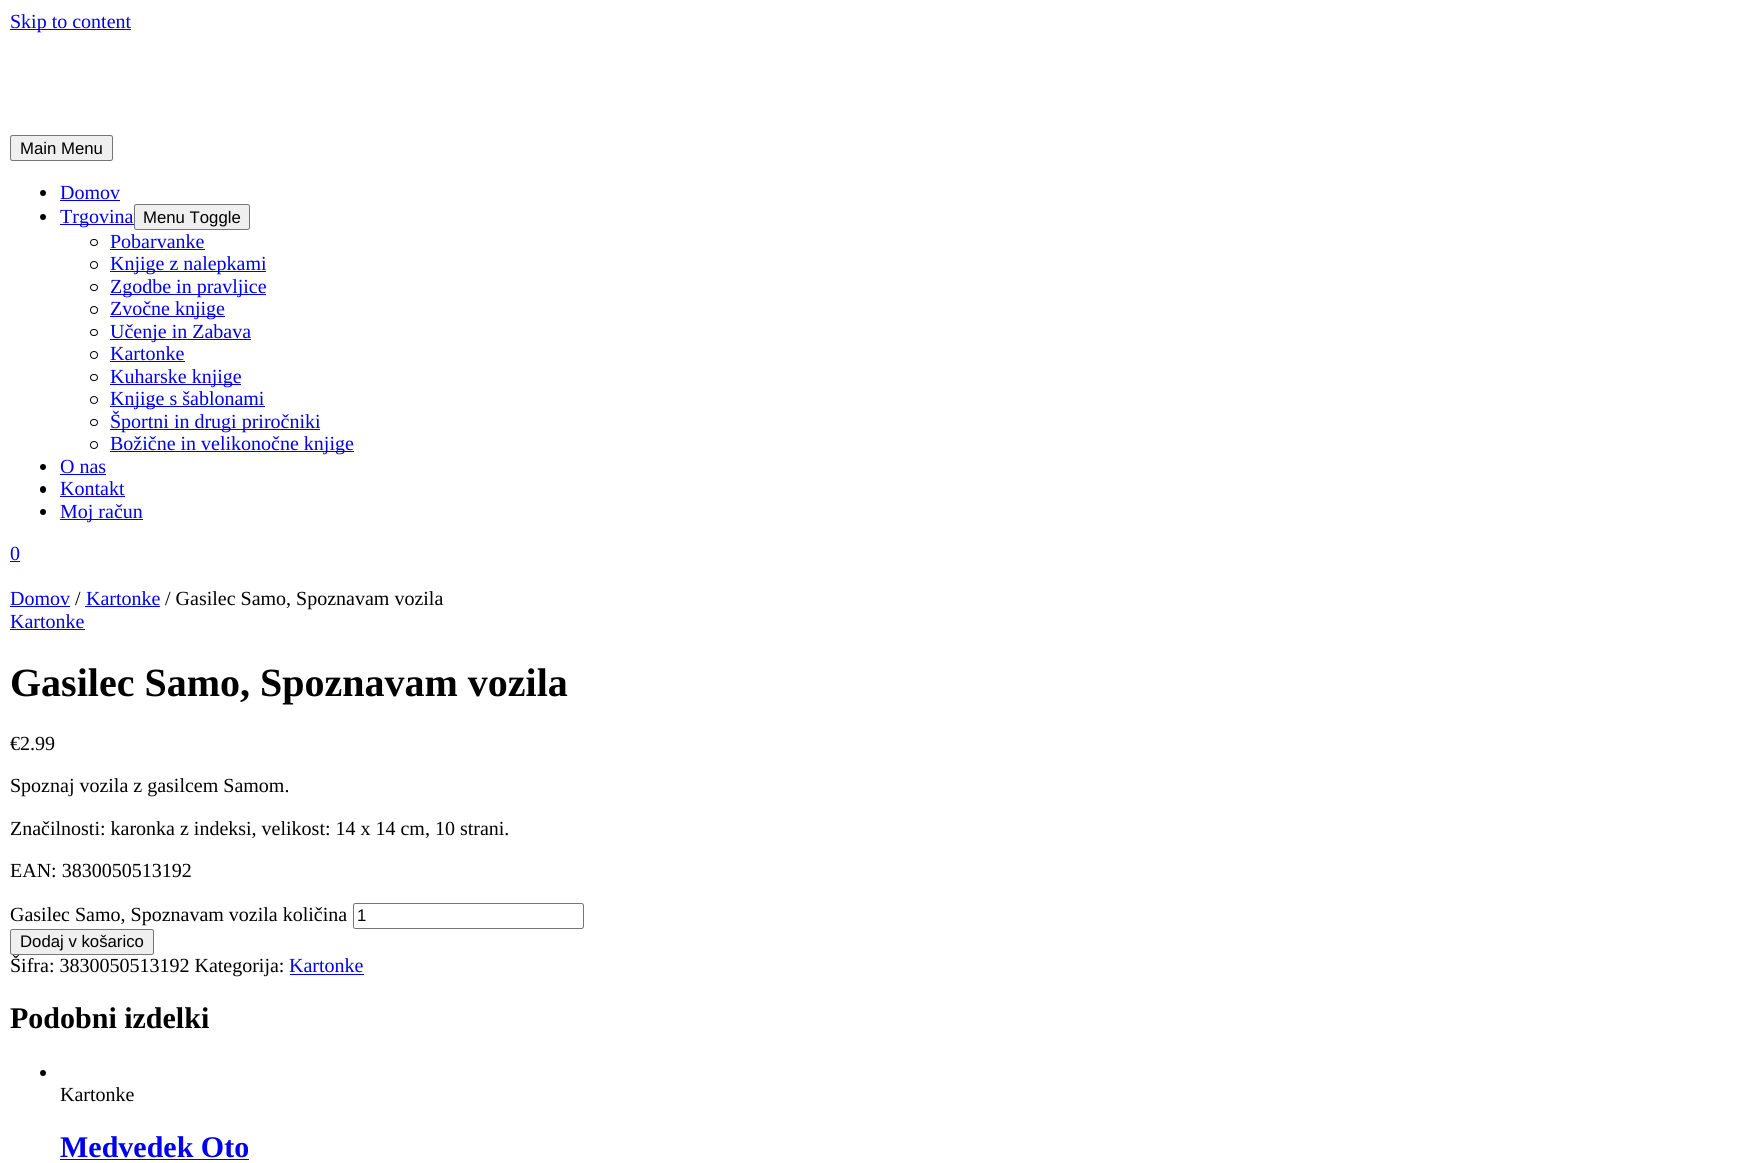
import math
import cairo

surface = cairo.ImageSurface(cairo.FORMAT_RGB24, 1739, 1163)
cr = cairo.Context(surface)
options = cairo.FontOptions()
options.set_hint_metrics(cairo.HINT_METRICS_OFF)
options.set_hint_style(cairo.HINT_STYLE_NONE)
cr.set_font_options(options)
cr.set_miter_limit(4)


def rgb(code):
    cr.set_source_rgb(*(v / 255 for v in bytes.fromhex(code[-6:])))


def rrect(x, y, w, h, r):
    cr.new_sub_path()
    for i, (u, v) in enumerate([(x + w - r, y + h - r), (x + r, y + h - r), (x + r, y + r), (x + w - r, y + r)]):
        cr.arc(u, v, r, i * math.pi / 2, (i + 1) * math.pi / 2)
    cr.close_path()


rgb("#ffffff")
cr.paint()
rgb("#0000ee")
cr.rectangle(10, 29, 121, 1)
cr.fill()
rgb("#efefef")
rrect(10.5, 135.5, 102, 25, 2)
cr.fill_preserve()
rgb("#767676")
cr.set_line_width(1)
cr.stroke()
rgb("#000000")
cr.arc(43, 193, 3, 0, 2 * math.pi)
cr.fill()
rgb("#0000ee")
cr.rectangle(60, 200, 60, 1)
cr.fill()
rgb("#000000")
cr.arc(43, 217, 3, 0, 2 * math.pi)
cr.fill()
rgb("#0000ee")
cr.rectangle(60, 224, 74, 1)
cr.fill()
rgb("#efefef")
rrect(134.5, 204.5, 115, 25, 2)
cr.fill_preserve()
rgb("#767676")
cr.stroke()
rrect(90.5, 239.5, 7, 6, 3)
rgb("#000000")
cr.stroke()
rgb("#0000ee")
cr.rectangle(110, 249, 95, 1)
cr.fill()
cr.arc(94, 265, 3.5, 0, 2 * math.pi)
rgb("#000000")
cr.stroke()
rgb("#0000ee")
cr.rectangle(110, 271, 156, 1)
cr.fill()
rrect(90.5, 284.5, 7, 6, 3)
rgb("#000000")
cr.stroke()
rgb("#0000ee")
cr.rectangle(110, 294, 156, 1)
cr.fill()
cr.arc(94, 310, 3.5, 0, 2 * math.pi)
rgb("#000000")
cr.stroke()
rgb("#0000ee")
cr.rectangle(110, 316, 115, 1)
cr.fill()
rrect(90.5, 329.5, 7, 6, 3)
rgb("#000000")
cr.stroke()
rgb("#0000ee")
cr.rectangle(110, 339, 141, 1)
cr.fill()
cr.arc(94, 355, 3.5, 0, 2 * math.pi)
rgb("#000000")
cr.stroke()
rgb("#0000ee")
cr.rectangle(110, 361, 75, 1)
cr.fill()
rrect(90.5, 374.5, 7, 6, 3)
rgb("#000000")
cr.stroke()
rgb("#0000ee")
cr.rectangle(110, 384, 131, 1)
cr.fill()
cr.arc(94, 400, 3.5, 0, 2 * math.pi)
rgb("#000000")
cr.stroke()
rgb("#0000ee")
cr.rectangle(110, 406, 155, 1)
cr.fill()
rrect(90.5, 419.5, 7, 6, 3)
rgb("#000000")
cr.stroke()
rgb("#0000ee")
cr.rectangle(110, 429, 210, 1)
cr.fill()
cr.arc(94, 445, 3.5, 0, 2 * math.pi)
rgb("#000000")
cr.stroke()
rgb("#0000ee")
cr.rectangle(110, 451, 244, 1)
cr.fill()
rgb("#000000")
cr.arc(43, 467, 3, 0, 2 * math.pi)
cr.fill()
rgb("#0000ee")
cr.rectangle(60, 474, 46, 1)
cr.fill()
rgb("#000000")
rrect(40, 486, 6, 7, 3)
cr.fill()
rgb("#0000ee")
cr.rectangle(60, 496, 65, 1)
cr.fill()
rgb("#000000")
cr.arc(43, 512, 3, 0, 2 * math.pi)
cr.fill()
for x, y, w, h, color in [
    (60, 519, 83, 1, "#0000ee"),
    (10, 561, 10, 1, "#0000ee"),
    (10, 606, 60, 1, "#0000ee"),
    (85, 606, 75, 1, "#0000ee"),
    (10, 629, 75, 1, "#0000ee"),
]:
    rgb(color)
    cr.rectangle(x, y, w, h)
    cr.fill()
rrect(353.5, 903.5, 230, 25, 2)
rgb("#767676")
cr.stroke()
rgb("#efefef")
rrect(10.5, 929.5, 143, 25, 2)
cr.fill_preserve()
rgb("#767676")
cr.stroke()
rgb("#0000ee")
cr.rectangle(290, 974, 74, 1)
cr.fill()
rgb("#000000")
cr.arc(43, 1073, 3, 0, 2 * math.pi)
cr.fill()
rgb("#0000ee")
cr.rectangle(60, 1159, 189, 1)
cr.fill()
cr.select_font_face("Liberation Serif")
cr.set_font_size(20)
cr.move_to(10, 28)
cr.show_text("Skip to content")
cr.select_font_face("Liberation Sans")
cr.set_font_size(16.75)
rgb("#000000")
cr.move_to(20, 154)
cr.show_text("Main Menu")
cr.select_font_face("Liberation Serif")
cr.set_font_size(20)
rgb("#0000ee")
cr.move_to(60, 199)
cr.show_text("Domov")
cr.move_to(60, 223)
cr.show_text("Trgovina")
cr.select_font_face("Liberation Sans")
cr.set_font_size(16.75)
rgb("#000000")
cr.move_to(143, 223)
cr.show_text("Menu Toggle")
cr.select_font_face("Liberation Serif")
cr.set_font_size(20)
rgb("#0000ee")
for x, y, s in [
    (110, 248, "Pobarvanke"),
    (110, 270, "Knjige z nalepkami"),
    (110, 293, "Zgodbe in pravljice"),
    (110, 315, "Zvočne knjige"),
    (110, 338, "Učenje in Zabava"),
    (110, 360, "Kartonke"),
    (110, 383, "Kuharske knjige"),
    (110, 405, "Knjige s šablonami"),
    (110, 428, "Športni in drugi priročniki"),
    (110, 450, "Božične in velikonočne knjige"),
    (60, 473, "O nas"),
    (60, 495, "Kontakt"),
    (60, 518, "Moj račun"),
    (10, 560, "0"),
    (10, 605, "Domov"),
]:
    cr.move_to(x, y)
    cr.show_text(s)
rgb("#000000")
cr.move_to(75, 605)
cr.show_text("/")
rgb("#0000ee")
cr.move_to(86, 605)
cr.show_text("Kartonke")
rgb("#000000")
cr.move_to(165, 605)
cr.show_text("/ Gasilec Samo, Spoznavam vozila")
rgb("#0000ee")
cr.move_to(10, 628)
cr.show_text("Kartonke")
cr.select_font_face("Liberation Serif", cairo.FONT_SLANT_NORMAL, cairo.FONT_WEIGHT_BOLD)
cr.set_font_size(40)
rgb("#000000")
cr.move_to(10, 696)
cr.show_text("Gasilec Samo, Spoznavam vozila")
cr.select_font_face("Liberation Serif")
cr.set_font_size(20)
for x, y, s in [
    (10, 750, "€2.99"),
    (10, 792, "Spoznaj vozila z gasilcem Samom."),
    (10, 835, "Značilnosti: karonka z indeksi, velikost: 14 x 14 cm, 10 strani."),
    (10, 877, "EAN: 3830050513192"),
    (10, 921, "Gasilec Samo, Spoznavam vozila količina"),
]:
    cr.move_to(x, y)
    cr.show_text(s)
cr.select_font_face("Liberation Sans")
cr.set_font_size(16.75)
cr.move_to(357, 921)
cr.show_text("1")
cr.move_to(20, 947)
cr.show_text("Dodaj v košarico")
cr.select_font_face("Liberation Serif")
cr.set_font_size(20)
cr.move_to(10, 972)
cr.show_text("Šifra: 3830050513192 Kategorija:")
rgb("#0000ee")
cr.move_to(289, 972)
cr.show_text("Kartonke")
cr.select_font_face("Liberation Serif", cairo.FONT_SLANT_NORMAL, cairo.FONT_WEIGHT_BOLD)
cr.set_font_size(30)
rgb("#000000")
cr.move_to(10, 1028)
cr.show_text("Podobni izdelki")
cr.select_font_face("Liberation Serif")
cr.set_font_size(20)
cr.move_to(60, 1101)
cr.show_text("Kartonke")
cr.select_font_face("Liberation Serif", cairo.FONT_SLANT_NORMAL, cairo.FONT_WEIGHT_BOLD)
cr.set_font_size(30)
rgb("#0000ee")
cr.move_to(60, 1157)
cr.show_text("Medvedek Oto")
surface.write_to_png("page.png")
